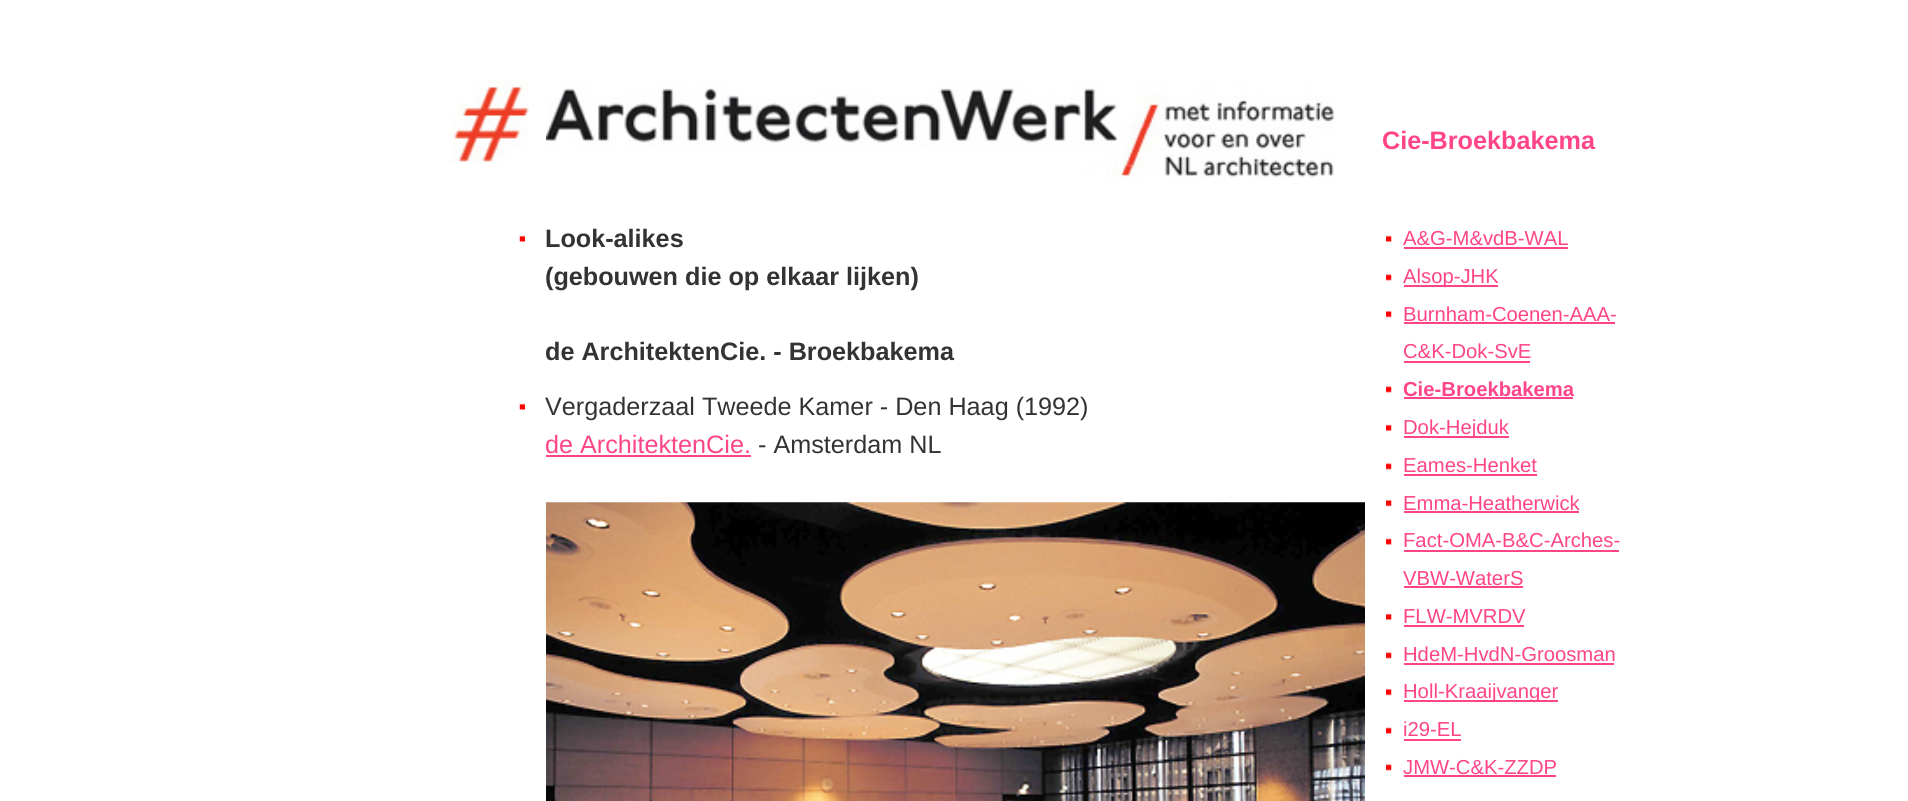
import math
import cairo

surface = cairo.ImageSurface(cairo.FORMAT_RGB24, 1908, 801)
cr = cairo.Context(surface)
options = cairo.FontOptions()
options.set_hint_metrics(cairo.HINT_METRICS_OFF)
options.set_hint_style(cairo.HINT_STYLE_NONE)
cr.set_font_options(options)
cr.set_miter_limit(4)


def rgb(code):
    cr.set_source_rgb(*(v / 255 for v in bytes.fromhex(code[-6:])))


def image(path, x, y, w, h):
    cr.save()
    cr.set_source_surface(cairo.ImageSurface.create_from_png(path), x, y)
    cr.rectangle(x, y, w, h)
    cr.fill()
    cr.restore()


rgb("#ffffff")
cr.paint()
image("img/1.png", 450, 79, 79, 84)
image("img/2.png", 546, 82, 788, 96)
image("img/3.png", 519, 235, 6, 7)
image("img/3.png", 519, 403, 6, 7)
rgb("#ff4488")
cr.rectangle(546, 455, 205, 2)
cr.fill()
image("img/4.png", 546, 502, 819, 299)
image("img/5.png", 1386, 235, 6, 7)
cr.rectangle(1404, 247, 164, 2)
cr.fill()
image("img/6.png", 1386, 274, 6, 7)
cr.rectangle(1404, 285, 94, 2)
cr.fill()
image("img/7.png", 1386, 311, 6, 7)
cr.rectangle(1404, 322, 211, 2)
cr.fill()
cr.rectangle(1404, 361, 126, 2)
cr.fill()
image("img/6.png", 1386, 386, 6, 7)
cr.rectangle(1404, 397, 169, 2)
cr.fill()
image("img/5.png", 1386, 424, 6, 7)
cr.rectangle(1404, 436, 105, 2)
cr.fill()
image("img/6.png", 1386, 463, 6, 7)
cr.rectangle(1404, 474, 133, 2)
cr.fill()
image("img/7.png", 1386, 500, 6, 7)
cr.rectangle(1404, 511, 175, 2)
cr.fill()
image("img/8.png", 1386, 538, 6, 7)
cr.rectangle(1404, 550, 215, 2)
cr.fill()
cr.rectangle(1404, 586, 119, 2)
cr.fill()
image("img/5.png", 1386, 613, 6, 7)
cr.rectangle(1404, 625, 120, 2)
cr.fill()
image("img/6.png", 1386, 652, 6, 7)
cr.rectangle(1404, 663, 210, 2)
cr.fill()
image("img/7.png", 1386, 689, 6, 7)
cr.rectangle(1404, 700, 154, 2)
cr.fill()
image("img/8.png", 1386, 727, 6, 7)
cr.rectangle(1404, 739, 57, 2)
cr.fill()
image("img/6.png", 1386, 764, 6, 7)
cr.rectangle(1404, 775, 152, 2)
cr.fill()
cr.select_font_face("Liberation Sans", cairo.FONT_SLANT_NORMAL, cairo.FONT_WEIGHT_BOLD)
cr.set_font_size(25.2)
cr.move_to(1382, 149)
cr.show_text("Cie-Broekbakema")
rgb("#333333")
for x, y, s in [
    (545, 247, "Look-alikes"),
    (545, 285, "(gebouwen die op elkaar lijken)"),
    (545, 360, "de ArchitektenCie. - Broekbakema"),
]:
    cr.move_to(x, y)
    cr.show_text(s)
cr.select_font_face("Liberation Sans")
cr.move_to(545, 415)
cr.show_text("Vergaderzaal Tweede Kamer - Den Haag (1992)")
rgb("#ff4488")
cr.move_to(545, 453)
cr.show_text("de ArchitektenCie.")
rgb("#333333")
cr.move_to(758, 453)
cr.show_text("- Amsterdam NL")
cr.set_font_size(20.25)
rgb("#ff4488")
for x, y, s in [
    (1403, 245, "A&G-M&vdB-WAL"),
    (1403, 283, "Alsop-JHK"),
    (1403, 321, "Burnham-Coenen-AAA-"),
    (1403, 358, "C&K-Dok-SvE"),
]:
    cr.move_to(x, y)
    cr.show_text(s)
cr.select_font_face("Liberation Sans", cairo.FONT_SLANT_NORMAL, cairo.FONT_WEIGHT_BOLD)
cr.move_to(1403, 396)
cr.show_text("Cie-Broekbakema")
cr.select_font_face("Liberation Sans")
for x, y, s in [
    (1403, 434, "Dok-Hejduk"),
    (1403, 472, "Eames-Henket"),
    (1403, 510, "Emma-Heatherwick"),
    (1403, 547, "Fact-OMA-B&C-Arches-"),
    (1403, 585, "VBW-WaterS"),
    (1403, 623, "FLW-MVRDV"),
    (1403, 661, "HdeM-HvdN-Groosman"),
    (1403, 698, "Holl-Kraaijvanger"),
    (1403, 736, "i29-EL"),
    (1403, 774, "JMW-C&K-ZZDP"),
]:
    cr.move_to(x, y)
    cr.show_text(s)
surface.write_to_png("page.png")
